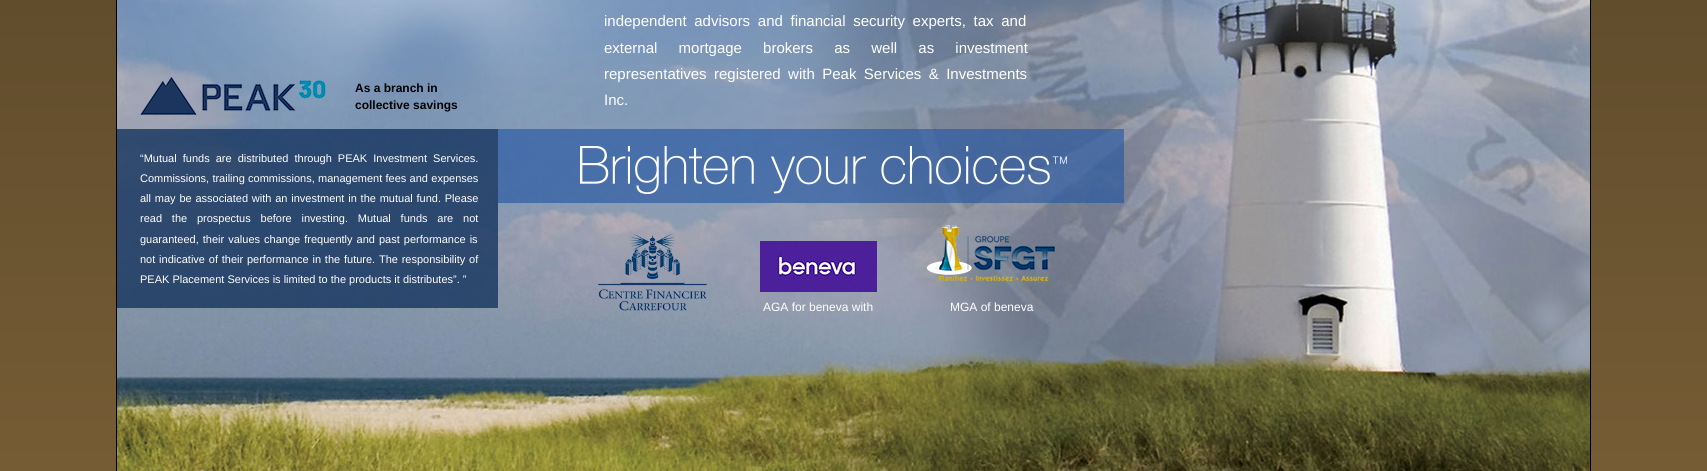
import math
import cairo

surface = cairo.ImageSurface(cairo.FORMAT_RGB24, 1707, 471)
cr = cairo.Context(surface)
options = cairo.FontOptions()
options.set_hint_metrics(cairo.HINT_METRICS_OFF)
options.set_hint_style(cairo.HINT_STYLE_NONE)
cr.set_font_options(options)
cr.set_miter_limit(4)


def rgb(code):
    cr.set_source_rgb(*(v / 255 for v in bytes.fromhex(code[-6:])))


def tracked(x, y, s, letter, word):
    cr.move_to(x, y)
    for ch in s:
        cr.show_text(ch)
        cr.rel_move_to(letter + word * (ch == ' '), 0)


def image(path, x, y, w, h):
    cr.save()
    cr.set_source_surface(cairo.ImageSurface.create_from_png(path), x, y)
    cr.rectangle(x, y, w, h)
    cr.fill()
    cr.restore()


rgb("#ffffff")
cr.paint()
gradient = cairo.LinearGradient(854, -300, 854, 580)
gradient.add_color_stop_rgba(0, 0.329, 0.259, 0.149, 1)
gradient.add_color_stop_rgba(1, 0.478, 0.376, 0.216, 1)
cr.set_source(gradient)
cr.rectangle(0, 0, 1707, 471)
cr.fill()
cr.rectangle(116.5, -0.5, 1474, 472)
rgb("#000000")
cr.set_line_width(1)
cr.stroke()
image("img/1.png", 117, 0, 1473, 471)
image("img/2.png", 140, 77, 186, 38)
cr.set_source_rgba(0.055, 0.18, 0.345, 0.75)
cr.rectangle(117, 129, 381, 179)
cr.fill()
cr.set_source_rgba(0.145, 0.341, 0.635, 0.64)
cr.rectangle(498, 129, 626, 74)
cr.fill()
image("img/3.png", 580, 146, 487, 48)
image("img/4.png", 598, 233, 109, 78)
image("img/5.png", 760, 241, 117, 51)
image("img/6.png", 926, 225, 129, 57)
cr.select_font_face("Liberation Sans", cairo.FONT_SLANT_NORMAL, cairo.FONT_WEIGHT_BOLD)
cr.set_font_size(12)
rgb("#000000")
cr.move_to(355, 92)
cr.show_text("As a branch in")
cr.move_to(355, 109)
cr.show_text("collective savings")
cr.select_font_face("Liberation Sans")
cr.set_font_size(15)
rgb("#ffffff")
tracked(604, 26, "independent advisors and financial security experts, tax and", 0, 3.5)
tracked(604, 53, "external mortgage brokers as well as investment", 0, 17)
tracked(604, 79, "representatives registered with Peak Services & Investments", 0, 3.25)
cr.move_to(604, 105)
cr.show_text("Inc.")
cr.set_font_size(11)
tracked(140, 162, "“Mutual funds are distributed through PEAK Investment Services.", 0, 3)
tracked(140, 182, "Commissions, trailing commissions, management fees and expenses", 0, 0.25)
tracked(140, 202, "all may be associated with an investment in the mutual fund. Please", 0, 0.75)
tracked(140, 222, "read the prospectus before investing. Mutual funds are not", 0, 6.75)
tracked(140, 243, "guaranteed, their values change frequently and past performance is", 0, 1)
tracked(140, 263, "not indicative of their performance in the future. The responsibility of", 0, 0.75)
cr.move_to(140, 283)
cr.show_text("PEAK Placement Services is limited to the products it distributes”. ”")
cr.set_font_size(12)
cr.move_to(763, 311)
cr.show_text("AGA for beneva with")
cr.move_to(950, 311)
cr.show_text("MGA of beneva")
surface.write_to_png("page.png")
